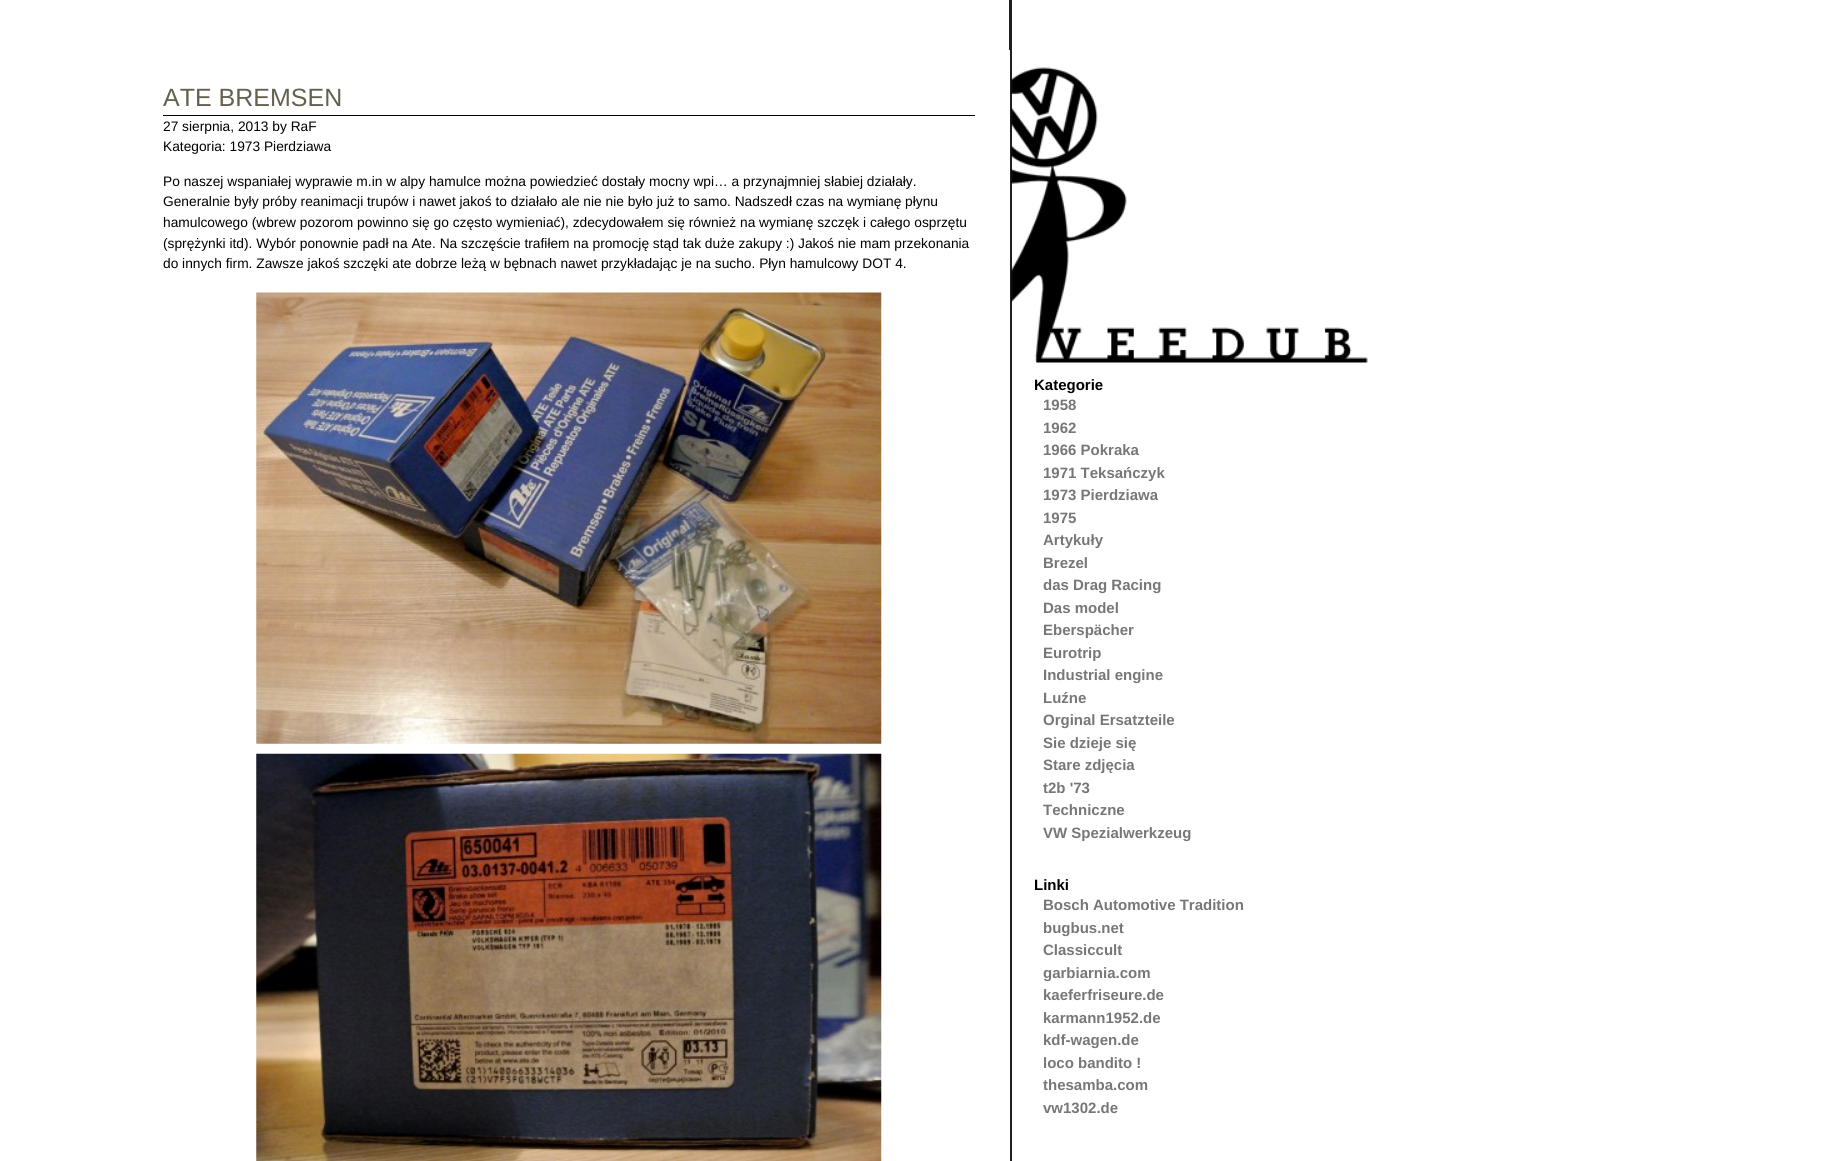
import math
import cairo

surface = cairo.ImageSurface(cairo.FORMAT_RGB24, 1847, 1161)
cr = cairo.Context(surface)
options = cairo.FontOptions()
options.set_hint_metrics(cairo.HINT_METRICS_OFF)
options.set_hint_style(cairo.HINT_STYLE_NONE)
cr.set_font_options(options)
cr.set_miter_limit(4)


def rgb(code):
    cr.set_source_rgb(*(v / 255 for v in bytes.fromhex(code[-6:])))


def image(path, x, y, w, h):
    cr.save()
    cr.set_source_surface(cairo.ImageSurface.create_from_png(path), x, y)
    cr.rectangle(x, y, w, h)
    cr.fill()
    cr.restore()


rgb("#ffffff")
cr.paint()
for x, y, w, h, color in [
    (1009, 0, 3, 1161, "#1f1f1f"),
    (1009, 50, 1, 1111, "#ffffff"),
    (163, 115, 812, 1, "#000000"),
]:
    rgb(color)
    cr.rectangle(x, y, w, h)
    cr.fill()
image("img/1.png", 256, 292, 626, 452)
image("img/2.png", 256, 753, 626, 408)
image("img/3.png", 1011, 67, 357, 296)
cr.select_font_face("Liberation Sans")
cr.set_font_size(25)
rgb("#66604e")
cr.move_to(163, 106)
cr.show_text("ATE BREMSEN")
cr.set_font_size(13.75)
rgb("#000000")
for x, y, s in [
    (163, 131, "27 sierpnia, 2013 by RaF"),
    (163, 151, "Kategoria: 1973 Pierdziawa"),
    (163, 186, "Po naszej wspaniałej wyprawie m.in w alpy hamulce można powiedzieć dostały mocny wpi… a przynajmniej słabiej działały."),
    (163, 206, "Generalnie były próby reanimacji trupów i nawet jakoś to działało ale nie nie było już to samo. Nadszedł czas na wymianę płynu"),
    (163, 227, "hamulcowego (wbrew pozorom powinno się go często wymieniać), zdecydowałem się również na wymianę szczęk i całego osprzętu"),
    (163, 248, "(sprężynki itd). Wybór ponownie padł na Ate. Na szczęście trafiłem na promocję stąd tak duże zakupy :) Jakoś nie mam przekonania"),
    (163, 268, "do innych firm. Zawsze jakoś szczęki ate dobrze leżą w bębnach nawet przykładając je na sucho. Płyn hamulcowy DOT 4."),
]:
    cr.move_to(x, y)
    cr.show_text(s)
cr.select_font_face("Liberation Sans", cairo.FONT_SLANT_NORMAL, cairo.FONT_WEIGHT_BOLD)
cr.set_font_size(15)
cr.move_to(1034, 390)
cr.show_text("Kategorie")
rgb("#777777")
for x, y, s in [
    (1043, 410, "1958"),
    (1043, 433, "1962"),
    (1043, 455, "1966 Pokraka"),
    (1043, 478, "1971 Teksańczyk"),
    (1043, 500, "1973 Pierdziawa"),
    (1043, 523, "1975"),
    (1043, 545, "Artykuły"),
    (1043, 568, "Brezel"),
    (1043, 590, "das Drag Racing"),
    (1043, 613, "Das model"),
    (1043, 635, "Eberspächer"),
    (1043, 658, "Eurotrip"),
    (1043, 680, "Industrial engine"),
    (1043, 703, "Luźne"),
    (1043, 725, "Orginal Ersatzteile"),
    (1043, 748, "Sie dzieje się"),
    (1043, 770, "Stare zdjęcia"),
    (1043, 793, "t2b '73"),
    (1043, 815, "Techniczne"),
    (1043, 838, "VW Spezialwerkzeug"),
]:
    cr.move_to(x, y)
    cr.show_text(s)
rgb("#000000")
cr.move_to(1034, 890)
cr.show_text("Linki")
rgb("#777777")
for x, y, s in [
    (1043, 910, "Bosch Automotive Tradition"),
    (1043, 933, "bugbus.net"),
    (1043, 955, "Classiccult"),
    (1043, 978, "garbiarnia.com"),
    (1043, 1000, "kaeferfriseure.de"),
    (1043, 1023, "karmann1952.de"),
    (1043, 1045, "kdf-wagen.de"),
    (1043, 1068, "loco bandito !"),
    (1043, 1090, "thesamba.com"),
    (1043, 1113, "vw1302.de"),
]:
    cr.move_to(x, y)
    cr.show_text(s)
surface.write_to_png("page.png")
